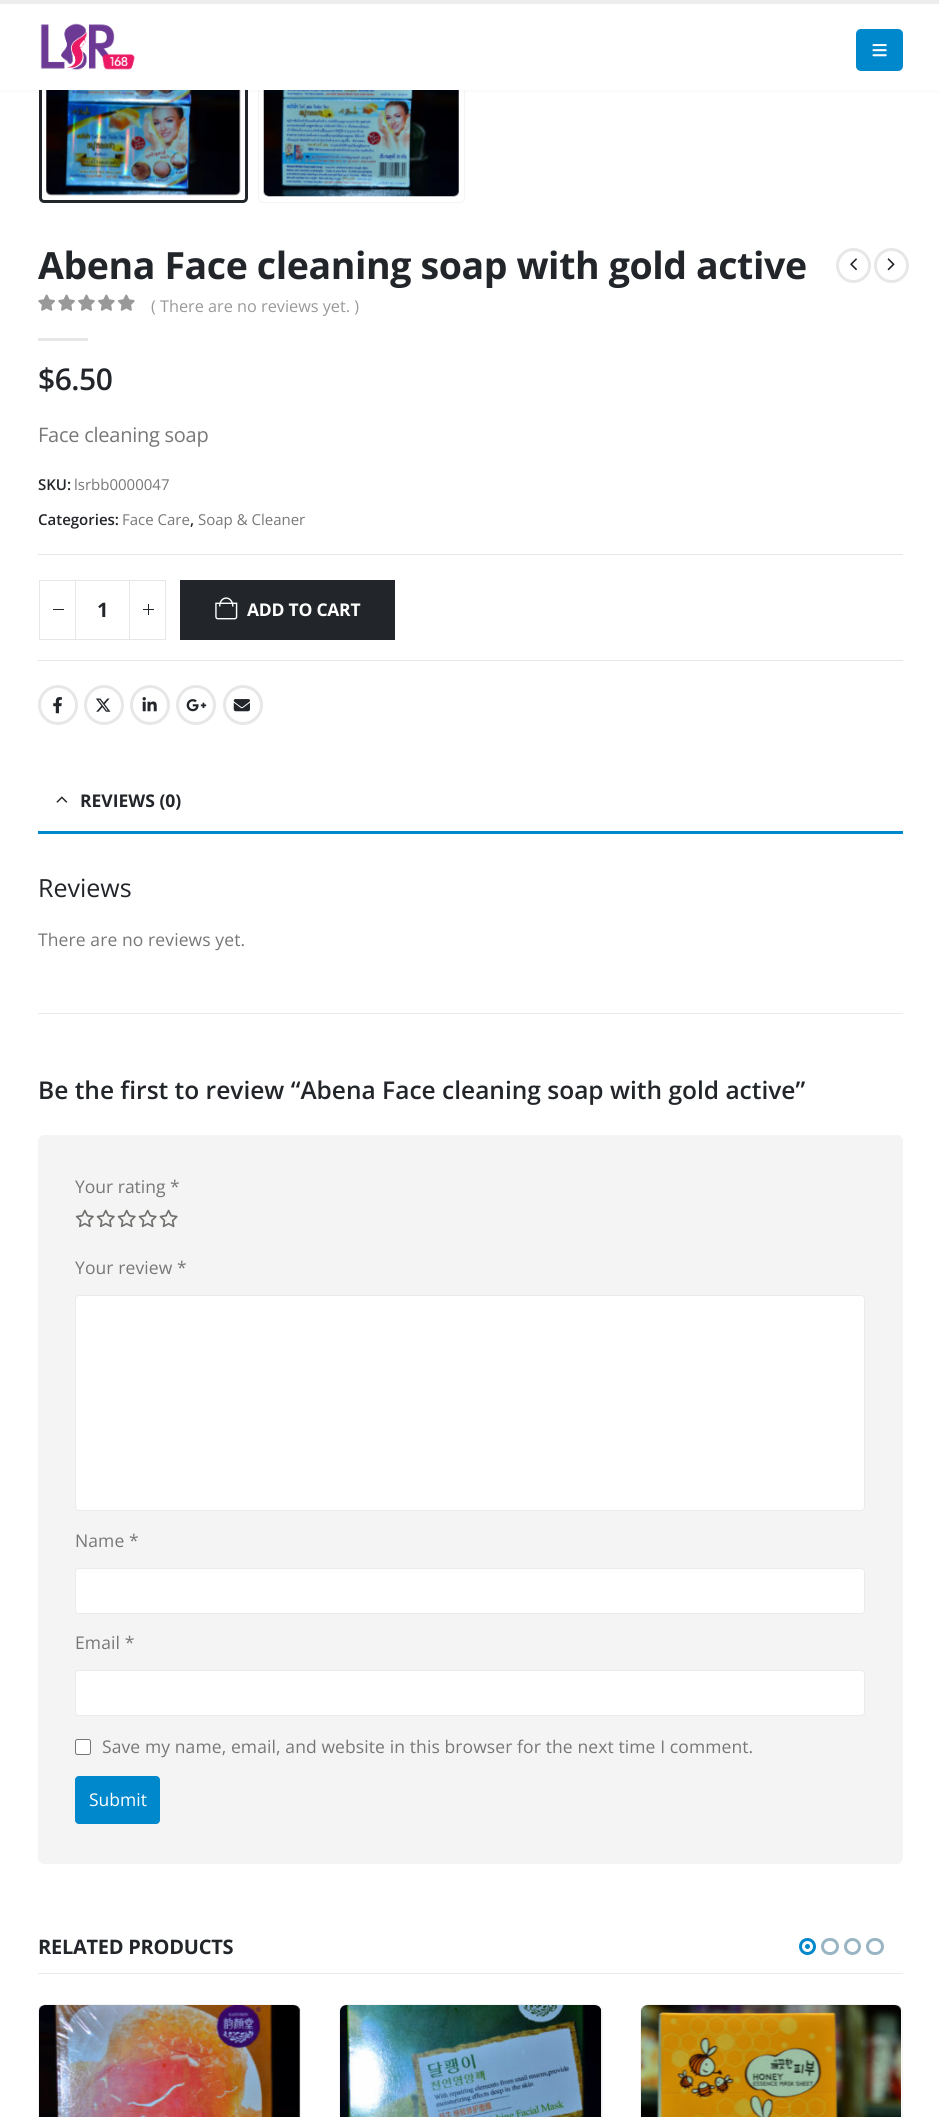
import math
import cairo

surface = cairo.ImageSurface(cairo.FORMAT_RGB24, 939, 2117)
cr = cairo.Context(surface)
options = cairo.FontOptions()
options.set_hint_metrics(cairo.HINT_METRICS_OFF)
options.set_hint_style(cairo.HINT_STYLE_NONE)
cr.set_font_options(options)
cr.set_miter_limit(4)


def rgb(code):
    cr.set_source_rgb(*(v / 255 for v in bytes.fromhex(code[-6:])))


def tracked(x, y, s, letter, word):
    cr.move_to(x, y)
    for ch in s:
        cr.show_text(ch)
        cr.rel_move_to(letter + word * (ch == ' '), 0)


def rrect(x, y, w, h, r):
    cr.new_sub_path()
    for i, (u, v) in enumerate([(x + w - r, y + h - r), (x + r, y + h - r), (x + r, y + r), (x + w - r, y + r)]):
        cr.arc(u, v, r, i * math.pi / 2, (i + 1) * math.pi / 2)
    cr.close_path()


def soft_shadow(x, y, w, h, r, blur, alpha):
    cr.push_group_with_content(cairo.CONTENT_ALPHA)
    cr.set_operator(cairo.OPERATOR_SOURCE)
    for i in range(15, -16, -2):
        e = blur * i / 6
        if min(w, h) + 2 * e > 0:
            cr.set_source_rgba(0, 0, 0, alpha * math.erfc((i - 1) / 8.5) / 2)
            rrect(x - e, y - e, w + 2 * e, h + 2 * e, max(0, min(r + e + blur * .6, min(w, h) / 2 + e)))
            cr.fill()
    cr.mask(cr.pop_group())


def image(path, x, y, w, h):
    cr.save()
    cr.set_source_surface(cairo.ImageSurface.create_from_png(path), x, y)
    cr.rectangle(x, y, w, h)
    cr.fill()
    cr.restore()


rgb("#ffffff")
cr.paint()
rrect(40.5, -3.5, 206, 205, 3.5)
rgb("#222529")
cr.set_line_width(3)
cr.stroke()
image("img/3.png", 46, 90, 195, 106)
rrect(258.5, -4.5, 206, 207, 4.5)
rgb("#f4f4f4")
cr.set_line_width(1)
cr.stroke()
image("img/4.png", 263, 90, 196, 107)
rgb("#000000")
soft_shadow(0, 0, 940, 90, 0, 2, 0.06)
rgb("#ffffff")
cr.rectangle(0, 4, 939, 86)
cr.fill()
rgb("#ededed")
cr.rectangle(0, 0, 939, 4)
cr.fill()
image("img/1.png", 40, 23, 95, 47)
rgb("#0088cc")
rrect(856, 29, 47, 42, 5)
cr.fill()
image("img/2.png", 872, 44, 15, 13)
cr.arc(853.5, 265.5, 16, 0, 2 * math.pi)
rgb("#e7e7e7")
cr.set_line_width(3)
cr.stroke()
image("img/5.png", 850, 258, 7, 13)
cr.arc(891.5, 265.5, 16, 0, 2 * math.pi)
cr.stroke()
image("img/6.png", 887, 258, 8, 13)
image("img/7.png", 38, 294, 97, 17)
for x, y, w, h, color in [
    (38, 338, 50, 3, "#e7e7e7"),
    (38, 554, 865, 1, "#e7e7e7"),
    (38, 660, 865, 1, "#e7e7e7"),
    (75, 580, 55, 1, "#e7e7e7"),
    (75, 639, 55, 1, "#e7e7e7"),
]:
    rgb(color)
    cr.rectangle(x, y, w, h)
    cr.fill()
cr.rectangle(39.5, 580.5, 36, 59)
cr.set_line_width(1)
cr.stroke()
rgb("#222529")
cr.rectangle(53, 609, 11, 1)
cr.fill()
cr.rectangle(129.5, 580.5, 36, 59)
rgb("#e7e7e7")
cr.stroke()
for x, y, w, h, color in [
    (143, 609, 11, 1, "#222529"),
    (148, 604, 1, 11, "#222529"),
    (180, 580, 215, 60, "#222529"),
]:
    rgb(color)
    cr.rectangle(x, y, w, h)
    cr.fill()
image("img/8.png", 215, 597, 23, 23)
cr.arc(58, 705, 18.5, 0, 2 * math.pi)
rgb("#e7e7e7")
cr.set_line_width(3)
cr.stroke()
image("img/9.png", 53, 697, 9, 17)
cr.arc(104, 705, 18.5, 0, 2 * math.pi)
cr.stroke()
image("img/10.png", 96, 698, 15, 14)
cr.arc(150, 705, 18.5, 0, 2 * math.pi)
cr.stroke()
image("img/11.png", 142, 697, 15, 15)
cr.arc(196, 705, 18.5, 0, 2 * math.pi)
cr.stroke()
image("img/12.png", 186, 699, 21, 13)
cr.arc(243, 705, 18.5, 0, 2 * math.pi)
cr.stroke()
image("img/13.png", 233, 699, 17, 13)
rgb("#0088cc")
cr.rectangle(38, 831, 865, 3)
cr.fill()
image("img/14.png", 56, 796, 12, 7)
rgb("#ebebeb")
cr.rectangle(38, 1013, 865, 1)
cr.fill()
rgb("#f4f4f4")
rrect(38, 1135, 865, 729, 6)
cr.fill()
image("img/15.png", 75, 1209, 103, 19)
rgb("#ffffff")
rrect(75, 1295, 790, 216, 4)
cr.fill()
rrect(75.5, 1295.5, 789, 215, 3.5)
cr.set_source_rgba(0, 0, 0, 0.08)
cr.set_line_width(1)
cr.stroke()
rgb("#ffffff")
rrect(75, 1568, 790, 46, 4)
cr.fill()
rrect(75.5, 1568.5, 789, 45, 3.5)
cr.set_source_rgba(0, 0, 0, 0.08)
cr.stroke()
rgb("#ffffff")
rrect(75, 1670, 790, 46, 4)
cr.fill()
rrect(75.5, 1670.5, 789, 45, 3.5)
cr.set_source_rgba(0, 0, 0, 0.08)
cr.stroke()
rgb("#ffffff")
rrect(75.5, 1739.5, 15, 15, 2)
cr.fill_preserve()
rgb("#767676")
cr.stroke()
rgb("#0088cc")
rrect(75.5, 1776.5, 84, 47, 3.5)
cr.fill_preserve()
cr.stroke()
cr.arc(807.5, 1946.5, 7, 0, 2 * math.pi)
cr.set_line_width(3)
cr.stroke()
cr.arc(807.5, 1946.5, 2.5, 0, 2 * math.pi)
cr.fill()
rrect(822.5, 1939.5, 15, 14, 7)
rgb("#99b4c2")
cr.stroke()
cr.arc(852.5, 1946.5, 7, 0, 2 * math.pi)
cr.stroke()
rrect(867.5, 1939.5, 15, 14, 7)
cr.stroke()
rrect(38.5, 2004.5, 262, 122, 8.5)
rgb("#f4f4f4")
cr.set_line_width(1)
cr.stroke()
image("img/16.png", 39, 2005, 261, 112)
rrect(339.5, 2004.5, 263, 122, 8.5)
cr.stroke()
image("img/17.png", 340, 2005, 262, 112)
rrect(640.5, 2004.5, 262, 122, 8.5)
cr.stroke()
image("img/18.png", 641, 2005, 260, 112)
rgb("#ebebeb")
cr.rectangle(38, 1973, 865, 1)
cr.fill()
cr.select_font_face("Open Sans", cairo.FONT_SLANT_NORMAL, cairo.FONT_WEIGHT_BOLD)
cr.set_font_size(37.5)
rgb("#222529")
tracked(38, 279, "Abena Face cleaning soap with gold active", -0.4, 0)
cr.select_font_face("Open Sans")
cr.set_font_size(16.25)
rgb("#999999")
cr.move_to(151, 312)
cr.show_text("( There are no reviews yet. )")
cr.select_font_face("Open Sans SemiBold")
cr.set_font_size(30)
rgb("#222529")
tracked(38, 390, "$6.50", -0.5, 0)
cr.select_font_face("Open Sans")
cr.set_font_size(20)
rgb("#777777")
tracked(38, 442, "Face cleaning soap", -0.25, 0)
cr.select_font_face("Open Sans SemiBold")
cr.set_font_size(15)
rgb("#222529")
cr.move_to(38, 490)
cr.show_text("SKU:")
cr.select_font_face("Open Sans")
rgb("#777777")
cr.move_to(74, 490)
cr.show_text("lsrbb0000047")
cr.select_font_face("Open Sans SemiBold")
rgb("#222529")
cr.move_to(38, 525)
cr.show_text("Categories:")
cr.select_font_face("Open Sans")
rgb("#777777")
cr.move_to(122, 525)
cr.show_text("Face Care")
cr.select_font_face("Open Sans SemiBold")
rgb("#222529")
cr.move_to(190, 525)
cr.show_text(",")
cr.select_font_face("Open Sans")
rgb("#777777")
cr.move_to(198, 525)
cr.show_text("Soap & Cleaner")
cr.select_font_face("Open Sans", cairo.FONT_SLANT_NORMAL, cairo.FONT_WEIGHT_BOLD)
cr.set_font_size(20)
rgb("#222529")
cr.move_to(97, 617)
cr.show_text("1")
cr.set_font_size(17.5)
rgb("#ffffff")
tracked(247, 616, "ADD TO CART", -0.25, 0)
rgb("#222529")
cr.move_to(80, 807)
cr.show_text("REVIEWS (0)")
cr.select_font_face("Open Sans")
cr.set_font_size(25)
cr.move_to(38, 897)
cr.show_text("Reviews")
cr.set_font_size(17.5)
rgb("#777777")
tracked(38, 946, "There are no reviews yet.", 0.1, 0)
cr.select_font_face("Open Sans SemiBold")
cr.set_font_size(24.5)
rgb("#222529")
cr.move_to(38, 1099)
cr.show_text("Be the first to review “Abena Face cleaning soap with gold active”")
cr.select_font_face("Open Sans")
cr.set_font_size(17.5)
rgb("#777777")
cr.move_to(75, 1193)
cr.show_text("Your rating *")
for x, y, s in [
    (75, 1274, "Your review *"),
    (75, 1547, "Name *"),
    (75, 1649, "Email *"),
    (102, 1753, "Save my name, email, and website in this browser for the next time I comment."),
]:
    tracked(x, y, s, 0.1, 0)
rgb("#ffffff")
cr.move_to(89, 1806)
cr.show_text("Submit")
cr.select_font_face("Open Sans", cairo.FONT_SLANT_NORMAL, cairo.FONT_WEIGHT_BOLD)
cr.set_font_size(20)
rgb("#222529")
tracked(38, 1954, "RELATED PRODUCTS", -0.25, 0)
surface.write_to_png("page.png")
